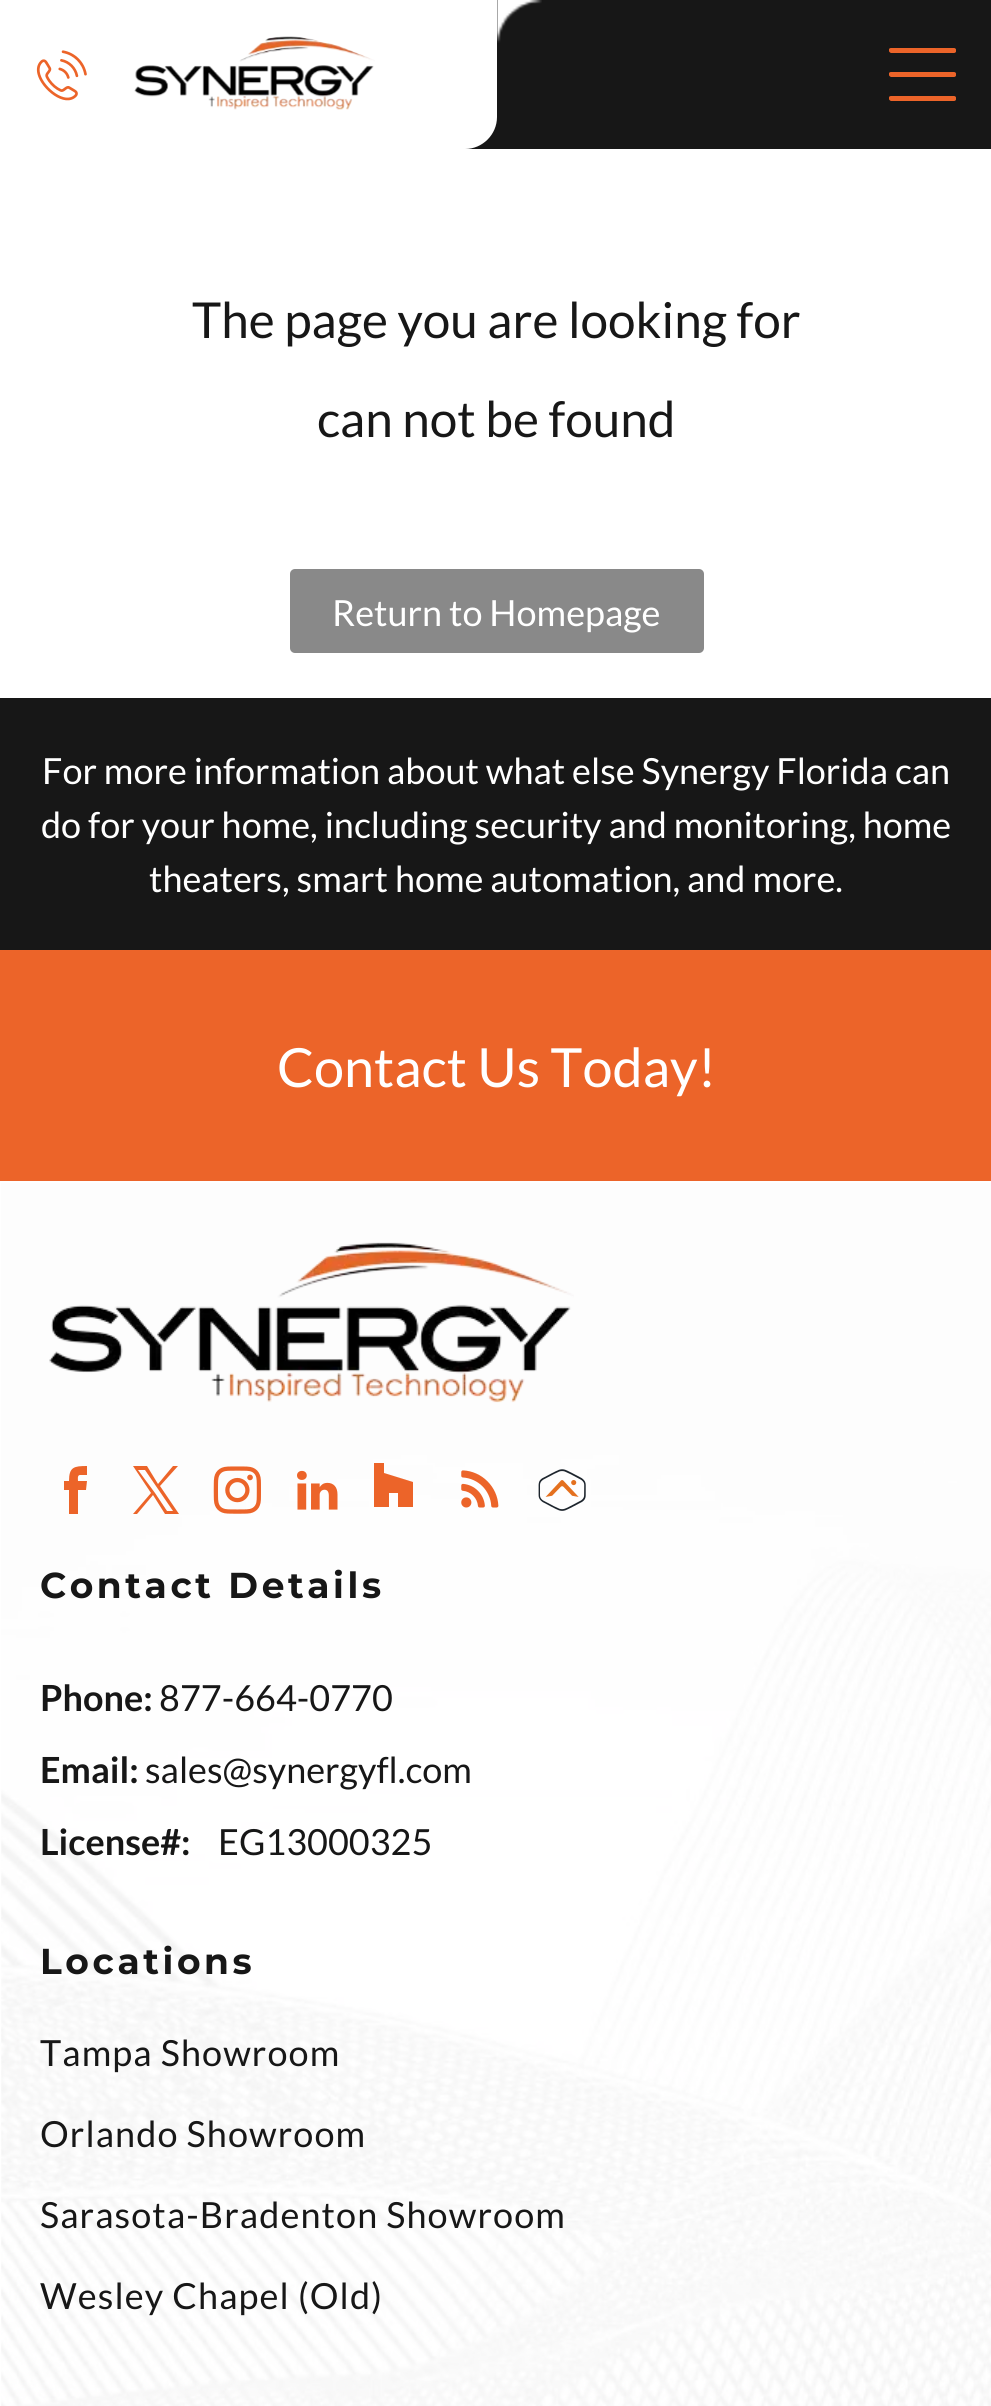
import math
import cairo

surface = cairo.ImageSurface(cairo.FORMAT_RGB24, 991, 2406)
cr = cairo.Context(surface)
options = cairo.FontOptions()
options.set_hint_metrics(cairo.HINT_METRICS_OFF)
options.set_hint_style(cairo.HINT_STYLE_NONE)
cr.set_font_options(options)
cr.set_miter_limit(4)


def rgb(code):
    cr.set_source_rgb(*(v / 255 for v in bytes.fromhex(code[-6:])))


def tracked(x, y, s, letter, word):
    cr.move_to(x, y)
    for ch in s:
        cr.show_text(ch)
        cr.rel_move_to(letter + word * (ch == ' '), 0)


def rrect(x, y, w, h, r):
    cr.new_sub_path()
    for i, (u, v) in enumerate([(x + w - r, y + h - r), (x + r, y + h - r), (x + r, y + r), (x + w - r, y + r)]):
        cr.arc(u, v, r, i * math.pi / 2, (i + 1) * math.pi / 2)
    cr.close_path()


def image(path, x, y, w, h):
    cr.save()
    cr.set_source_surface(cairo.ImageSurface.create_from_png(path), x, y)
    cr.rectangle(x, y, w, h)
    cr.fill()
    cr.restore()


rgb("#ffffff")
cr.paint()
rgb("#171717")
cr.rectangle(465, 0, 526, 149)
cr.fill()
rgb("#ffffff")
cr.new_path()
cr.move_to(0, 0)
cr.line_to(497, 0)
cr.line_to(497, 117)
cr.curve_to(497, 134.5, 482.5, 149, 465, 149)
cr.line_to(0, 149)
cr.close_path()
cr.fill()
image("img/1.png", 36, 50, 51, 51)
image("img/2.png", 134, 36, 241, 74)
image("img/3.png", 497, 0, 45, 43)
cr.save()
cr.rectangle(889, 38, 67, 72)
cr.clip()
rgb("#ec6429")
cr.new_path()
cr.move_to(891, 48)
cr.curve_to(888, 48, 888, 52, 891, 53)
cr.line_to(954, 53)
cr.curve_to(957, 53, 957, 48, 954, 48)
cr.close_path()
cr.move_to(891, 72)
cr.curve_to(888, 72, 888, 76, 891, 77)
cr.line_to(954, 77)
cr.curve_to(957, 77, 957, 72, 954, 72)
cr.close_path()
cr.move_to(891, 96)
cr.curve_to(888, 96, 888, 100, 891, 101)
cr.line_to(954, 101)
cr.curve_to(957, 101, 957, 96, 954, 96)
cr.close_path()
cr.fill()
cr.restore()
rgb("#898989")
rrect(290, 569, 414, 84, 5)
cr.fill()
rgb("#171717")
cr.rectangle(0, 698, 991, 252)
cr.fill()
rgb("#ec6429")
cr.rectangle(0, 950, 991, 231)
cr.fill()
image("img/4.png", 1, 1183, 990, 1223)
image("img/5.png", 49, 1242, 525, 161)
cr.new_path()
cr.move_to(80, 1475)
cr.line_to(87, 1475)
cr.line_to(87, 1466)
cr.curve_to(74, 1466, 69, 1467, 69, 1481)
cr.line_to(64, 1481)
cr.line_to(64, 1490)
cr.line_to(69, 1490)
cr.line_to(69, 1514)
cr.line_to(78, 1514)
cr.line_to(78, 1490)
cr.line_to(86, 1490)
cr.line_to(87, 1481)
cr.line_to(78, 1481)
cr.curve_to(78, 1480, 77, 1475, 80, 1475)
cr.close_path()
cr.fill()
cr.new_path()
cr.move_to(160, 1486)
cr.line_to(178, 1466)
cr.line_to(173, 1466)
cr.line_to(158, 1484)
cr.line_to(147, 1466)
cr.line_to(133, 1466)
cr.line_to(151, 1493)
cr.line_to(133, 1514)
cr.line_to(137, 1514)
cr.line_to(153, 1495)
cr.line_to(165, 1514)
cr.line_to(179, 1514)
cr.close_path()
cr.move_to(155, 1493)
cr.line_to(138, 1470)
cr.line_to(145, 1470)
cr.line_to(173, 1511)
cr.line_to(167, 1511)
cr.close_path()
cr.fill()
image("img/6.png", 213, 1466, 48, 48)
image("img/7.png", 297, 1470, 41, 40)
cr.save()
cr.rectangle(371, 1463, 56, 55)
cr.clip()
cr.new_path()
cr.move_to(398, 1507)
cr.line_to(413, 1507)
cr.line_to(413, 1482)
cr.line_to(384, 1473)
cr.line_to(384, 1462)
cr.line_to(374, 1462)
cr.line_to(374, 1507)
cr.line_to(389, 1507)
cr.line_to(389, 1493)
cr.line_to(398, 1493)
cr.close_path()
cr.fill()
cr.restore()
image("img/8.png", 461, 1470, 38, 38)
image("img/9.png", 538, 1469, 48, 42)
cr.select_font_face("Lato")
cr.set_font_size(49.5)
rgb("#171717")
cr.move_to(192, 338)
cr.show_text("The page you are looking for")
cr.move_to(317, 437)
cr.show_text("can not be found")
cr.set_font_size(36)
rgb("#ffffff")
for x, y, s in [
    (332, 626, "Return to Homepage"),
    (42, 784, "For more information about what else Synergy Florida can"),
    (41, 838, "do for your home, including security and monitoring, home"),
    (149, 892, "theaters, smart home automation, and more."),
]:
    cr.move_to(x, y)
    cr.show_text(s)
cr.set_font_size(54)
cr.move_to(277, 1087)
cr.show_text("Contact Us Today!")
cr.select_font_face("Montserrat", cairo.FONT_SLANT_NORMAL, cairo.FONT_WEIGHT_BOLD)
cr.set_font_size(36)
rgb("#171717")
tracked(40, 1598, "Contact Details", 3.6, 0)
cr.select_font_face("Lato", cairo.FONT_SLANT_NORMAL, cairo.FONT_WEIGHT_BOLD)
cr.move_to(40, 1711)
cr.show_text("Phone:")
cr.select_font_face("Lato")
cr.move_to(159, 1711)
cr.show_text("877-664-0770")
cr.select_font_face("Lato", cairo.FONT_SLANT_NORMAL, cairo.FONT_WEIGHT_BOLD)
cr.move_to(40, 1783)
cr.show_text("Email:")
cr.select_font_face("Lato")
cr.move_to(145, 1783)
cr.show_text("sales@synergyfl.com")
cr.select_font_face("Lato", cairo.FONT_SLANT_NORMAL, cairo.FONT_WEIGHT_BOLD)
cr.move_to(40, 1855)
cr.show_text("License#:")
cr.select_font_face("Lato")
cr.move_to(218, 1855)
cr.show_text("EG13000325")
cr.select_font_face("Montserrat", cairo.FONT_SLANT_NORMAL, cairo.FONT_WEIGHT_BOLD)
tracked(40, 1974, "Locations", 3.6, 0)
cr.select_font_face("Lato")
for x, y, s in [
    (40, 2066, "Tampa Showroom"),
    (40, 2147, "Orlando Showroom"),
    (40, 2228, "Sarasota-Bradenton Showroom"),
    (40, 2309, "Wesley Chapel (Old)"),
]:
    tracked(x, y, s, 1.1, 0)
surface.write_to_png("page.png")
